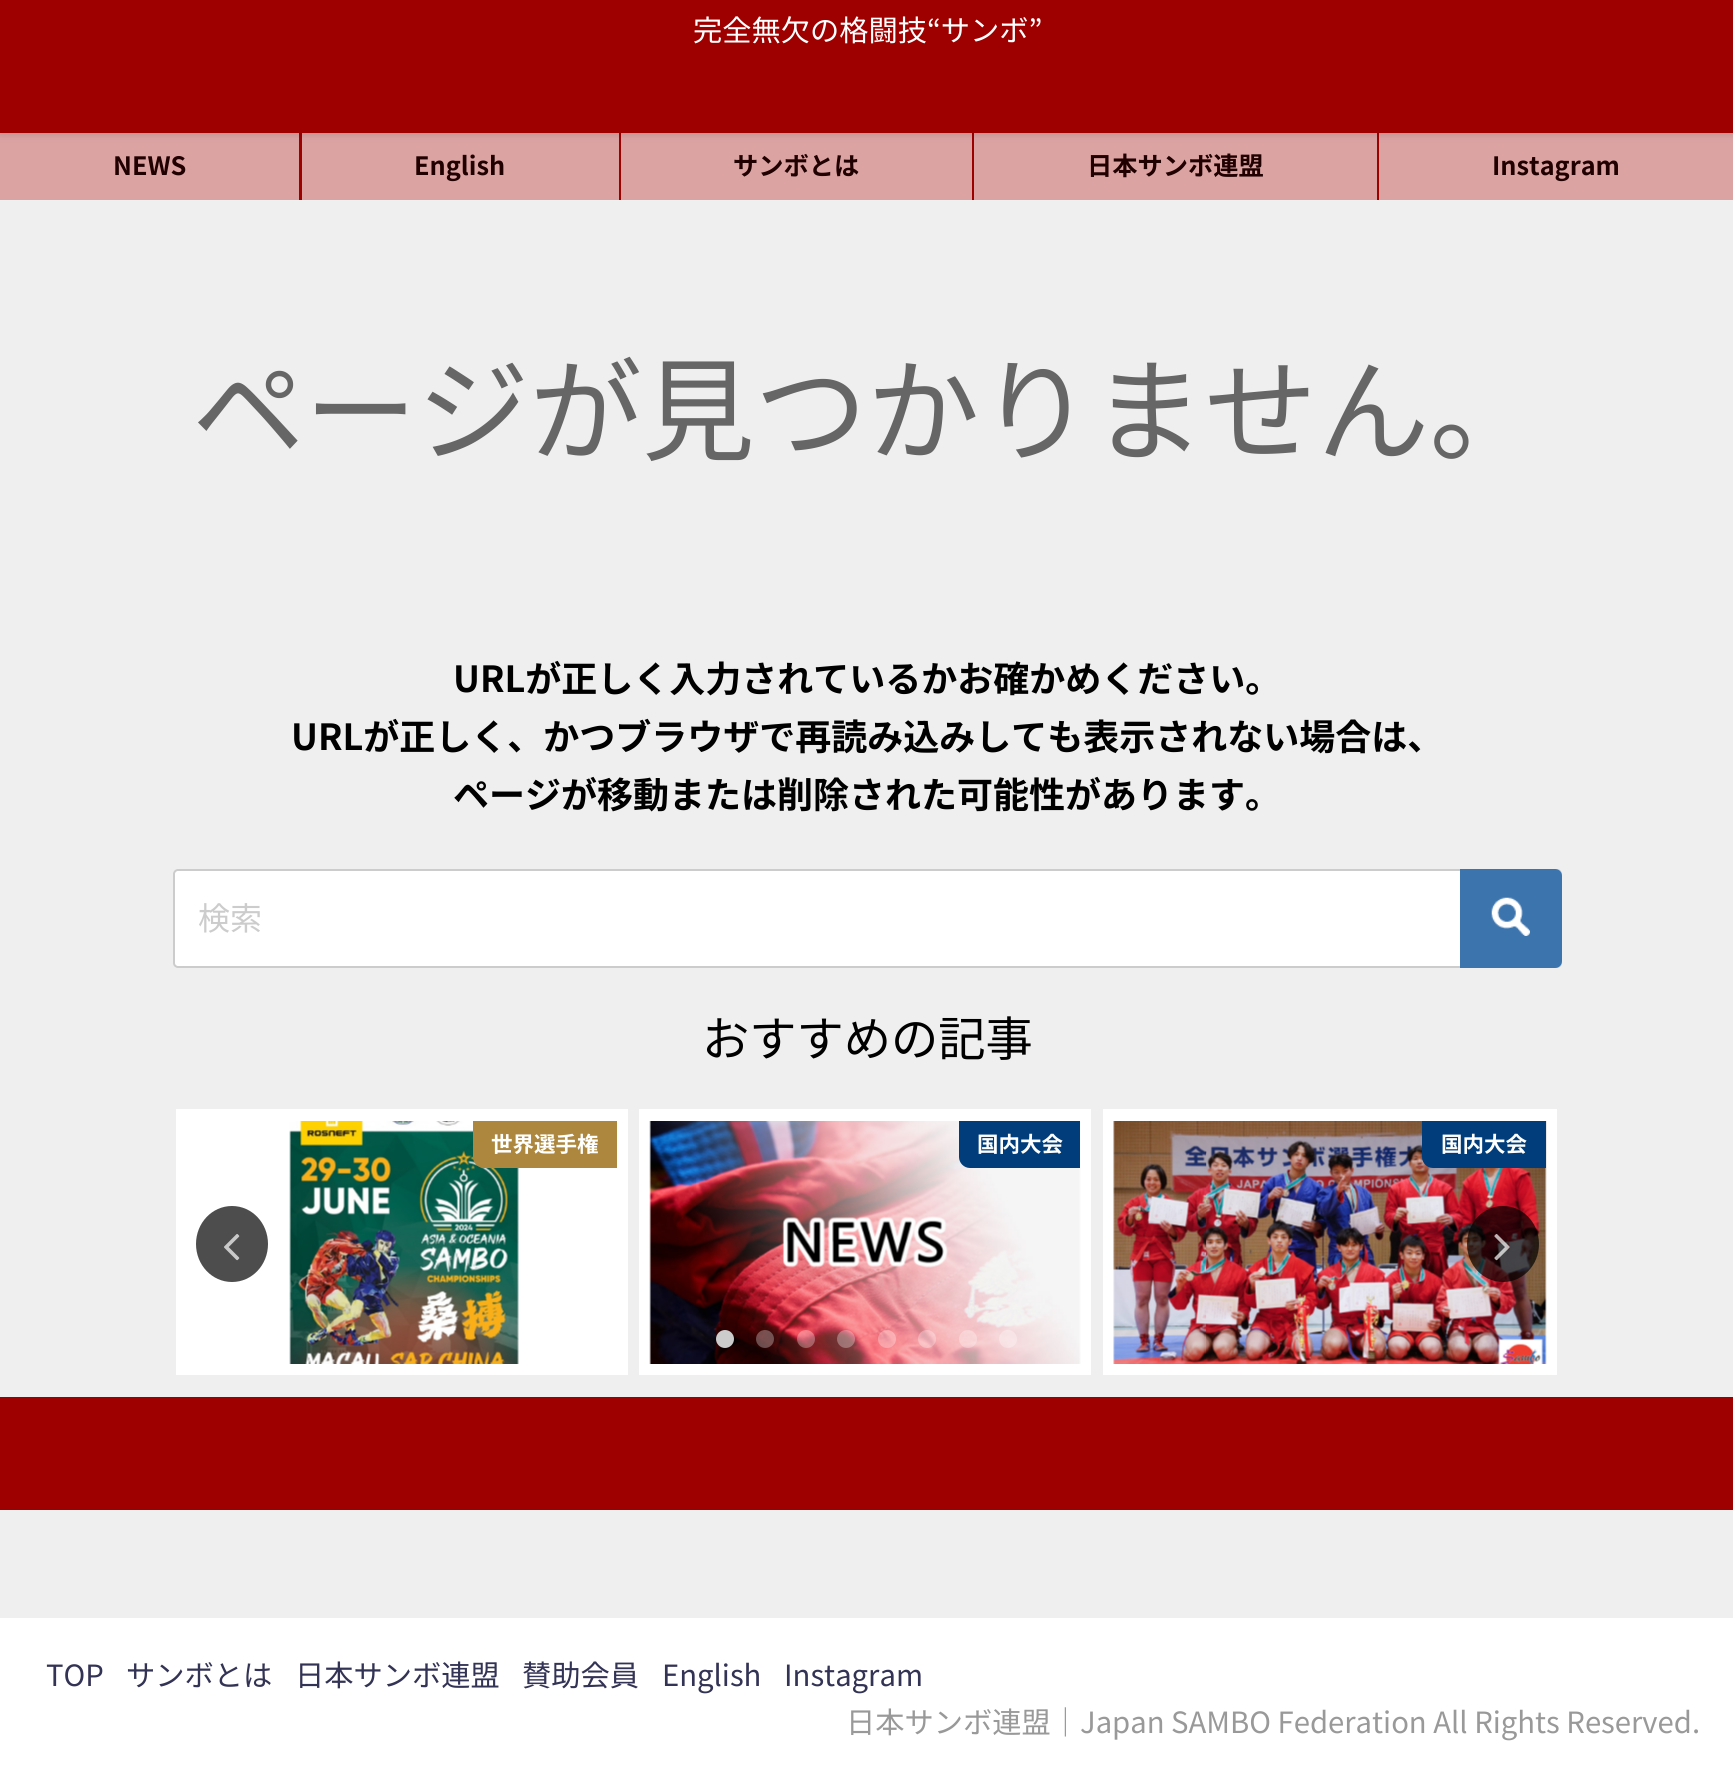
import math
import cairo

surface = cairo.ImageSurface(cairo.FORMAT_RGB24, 1733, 1778)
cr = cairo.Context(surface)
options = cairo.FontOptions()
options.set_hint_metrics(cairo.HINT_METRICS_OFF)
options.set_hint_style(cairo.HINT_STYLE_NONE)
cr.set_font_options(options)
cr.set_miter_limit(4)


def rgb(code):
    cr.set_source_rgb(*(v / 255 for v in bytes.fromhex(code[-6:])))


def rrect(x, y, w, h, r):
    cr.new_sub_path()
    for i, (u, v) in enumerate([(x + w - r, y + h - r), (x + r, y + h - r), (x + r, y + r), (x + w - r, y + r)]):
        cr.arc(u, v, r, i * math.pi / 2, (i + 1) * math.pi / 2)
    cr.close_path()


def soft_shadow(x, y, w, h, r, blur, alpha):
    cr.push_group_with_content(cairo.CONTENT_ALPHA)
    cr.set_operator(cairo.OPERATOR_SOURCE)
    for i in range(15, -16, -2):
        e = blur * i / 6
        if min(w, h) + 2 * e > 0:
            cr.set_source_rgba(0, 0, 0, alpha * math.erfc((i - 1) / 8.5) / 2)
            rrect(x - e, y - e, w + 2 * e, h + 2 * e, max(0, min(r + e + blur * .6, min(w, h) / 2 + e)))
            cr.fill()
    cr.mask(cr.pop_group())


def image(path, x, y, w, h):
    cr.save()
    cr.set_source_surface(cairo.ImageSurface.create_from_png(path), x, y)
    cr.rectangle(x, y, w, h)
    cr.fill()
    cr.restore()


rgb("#efefef")
cr.paint()
for x, y, w, h, color in [
    (299, 133, 1080, 67, "#9e0000"),
    (0, 133, 299, 67, "#dca3a3"),
    (302, 133, 317, 67, "#dca3a3"),
    (621, 133, 351, 67, "#dca3a3"),
    (974, 133, 403, 67, "#dca3a3"),
    (1379, 133, 354, 67, "#dca3a3"),
]:
    rgb(color)
    cr.rectangle(x, y, w, h)
    cr.fill()
rgb("#000000")
soft_shadow(0, 0, 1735, 133, 0, 4.5, 0.2)
rgb("#9e0000")
cr.rectangle(0, 0, 1733, 133)
cr.fill()
rgb("#ffffff")
rrect(174, 870, 1387, 97, 4)
cr.fill_preserve()
rgb("#cccccc")
cr.stroke()
rgb("#3c74ad")
cr.new_path()
cr.move_to(1460, 869)
cr.line_to(1555, 869)
cr.curve_to(1559, 869, 1562, 872, 1562, 876)
cr.line_to(1562, 961)
cr.curve_to(1562, 965, 1559, 968, 1555, 968)
cr.line_to(1460, 968)
cr.close_path()
cr.fill()
image("img/1.png", 1491, 897, 39, 39)
rgb("#ffffff")
cr.rectangle(176, 1109, 452, 266)
cr.fill()
image("img/2.png", 289, 1121, 230, 243)
rgb("#ac873d")
cr.new_path()
cr.move_to(473, 1121)
cr.line_to(617, 1121)
cr.line_to(617, 1168)
cr.line_to(484, 1168)
cr.curve_to(478, 1168, 473, 1163, 473, 1157)
cr.close_path()
cr.fill()
rgb("#ffffff")
cr.rectangle(639, 1109, 452, 266)
cr.fill()
image("img/3.png", 649, 1121, 432, 243)
rgb("#003d7a")
cr.new_path()
cr.move_to(959, 1121)
cr.line_to(1080, 1121)
cr.line_to(1080, 1168)
cr.line_to(970, 1168)
cr.curve_to(964, 1168, 959, 1163, 959, 1157)
cr.close_path()
cr.fill()
rgb("#ffffff")
cr.rectangle(1103, 1109, 454, 266)
cr.fill()
image("img/4.png", 1113, 1121, 434, 243)
rgb("#003d7a")
cr.new_path()
cr.move_to(1422, 1121)
cr.line_to(1546, 1121)
cr.line_to(1546, 1168)
cr.line_to(1433, 1168)
cr.curve_to(1427, 1168, 1422, 1163, 1422, 1157)
cr.close_path()
cr.fill()
rgb("#4d4d4d")
cr.new_path()
cr.move_to(232, 1206)
cr.curve_to(252, 1206, 268, 1223, 268, 1244)
cr.curve_to(268, 1265, 252, 1282, 232, 1282)
cr.curve_to(212, 1282, 196, 1265, 196, 1244)
cr.curve_to(196, 1223, 212, 1206, 232, 1206)
cr.close_path()
cr.fill()
image("img/5.png", 224, 1234, 16, 27)
cr.set_source_rgba(0, 0, 0, 0.7)
cr.new_path()
cr.move_to(1503, 1206)
cr.curve_to(1523, 1206, 1539, 1223, 1539, 1244)
cr.curve_to(1539, 1265, 1523, 1282, 1503, 1282)
cr.curve_to(1483, 1282, 1467, 1265, 1467, 1244)
cr.curve_to(1467, 1223, 1483, 1206, 1503, 1206)
cr.close_path()
cr.fill()
image("img/6.png", 1494, 1234, 16, 27)
rgb("#cccccc")
cr.arc(725, 1339, 9, 0, 2 * math.pi)
cr.fill()
cr.set_source_rgba(1, 1, 1, 0.3)
cr.arc(765, 1339, 9, 0, 2 * math.pi)
cr.fill()
cr.arc(806, 1339, 9, 0, 2 * math.pi)
cr.fill()
cr.arc(846, 1339, 9, 0, 2 * math.pi)
cr.fill()
cr.arc(887, 1339, 9, 0, 2 * math.pi)
cr.fill()
cr.arc(927, 1339, 9, 0, 2 * math.pi)
cr.fill()
cr.arc(968, 1339, 9, 0, 2 * math.pi)
cr.fill()
cr.arc(1008, 1339, 9, 0, 2 * math.pi)
cr.fill()
rgb("#9e0000")
cr.rectangle(0, 1397, 1733, 113)
cr.fill()
rgb("#ffffff")
cr.rectangle(0, 1618, 1733, 160)
cr.fill()
cr.select_font_face("Noto Sans JP")
cr.set_font_size(29.25)
cr.move_to(693, 41)
cr.show_text("完全無欠の格闘技“サンボ”")
cr.select_font_face("Noto Sans JP", cairo.FONT_SLANT_NORMAL, cairo.FONT_WEIGHT_BOLD)
cr.set_font_size(25.25)
rgb("#200000")
for x, y, s in [
    (113, 175, "NEWS"),
    (414, 175, "English"),
    (733, 175, "サンボとは"),
    (1087, 175, "日本サンボ連盟"),
    (1492, 175, "Instagram"),
]:
    cr.move_to(x, y)
    cr.show_text(s)
cr.select_font_face("Noto Sans JP")
cr.set_font_size(112.5)
rgb("#666666")
cr.move_to(192, 452)
cr.show_text("ページが見つかりません。")
cr.select_font_face("Noto Sans JP", cairo.FONT_SLANT_NORMAL, cairo.FONT_WEIGHT_BOLD)
cr.set_font_size(36)
rgb("#000000")
for x, y, s in [
    (453, 692, "URLが正しく入力されているかお確かめください。"),
    (291, 750, "URLが正しく、かつブラウザで再読み込みしても表示されない場合は、"),
    (453, 808, "ページが移動または削除された可能性があります。"),
]:
    cr.move_to(x, y)
    cr.show_text(s)
cr.select_font_face("Noto Sans JP")
cr.set_font_size(32)
rgb("#cccccc")
cr.move_to(198, 930)
cr.show_text("検索")
cr.set_font_size(47.25)
rgb("#000000")
cr.move_to(702, 1056)
cr.show_text("おすすめの記事")
cr.select_font_face("Noto Sans JP", cairo.FONT_SLANT_NORMAL, cairo.FONT_WEIGHT_BOLD)
cr.set_font_size(21.5)
rgb("#ffffff")
for x, y, s in [
    (491, 1152, "世界選手権"),
    (977, 1152, "国内大会"),
    (1441, 1152, "国内大会"),
]:
    cr.move_to(x, y)
    cr.show_text(s)
cr.select_font_face("Noto Sans JP")
cr.set_font_size(29.25)
rgb("#333355")
for x, y, s in [
    (46, 1686, "TOP"),
    (126, 1686, "サンボとは"),
    (295, 1686, "日本サンボ連盟"),
    (522, 1686, "賛助会員"),
    (662, 1686, "English"),
    (784, 1686, "Instagram"),
]:
    cr.move_to(x, y)
    cr.show_text(s)
rgb("#999999")
cr.move_to(846, 1733)
cr.show_text("日本サンボ連盟｜Japan SAMBO Federation All Rights Reserved.")
surface.write_to_png("page.png")
